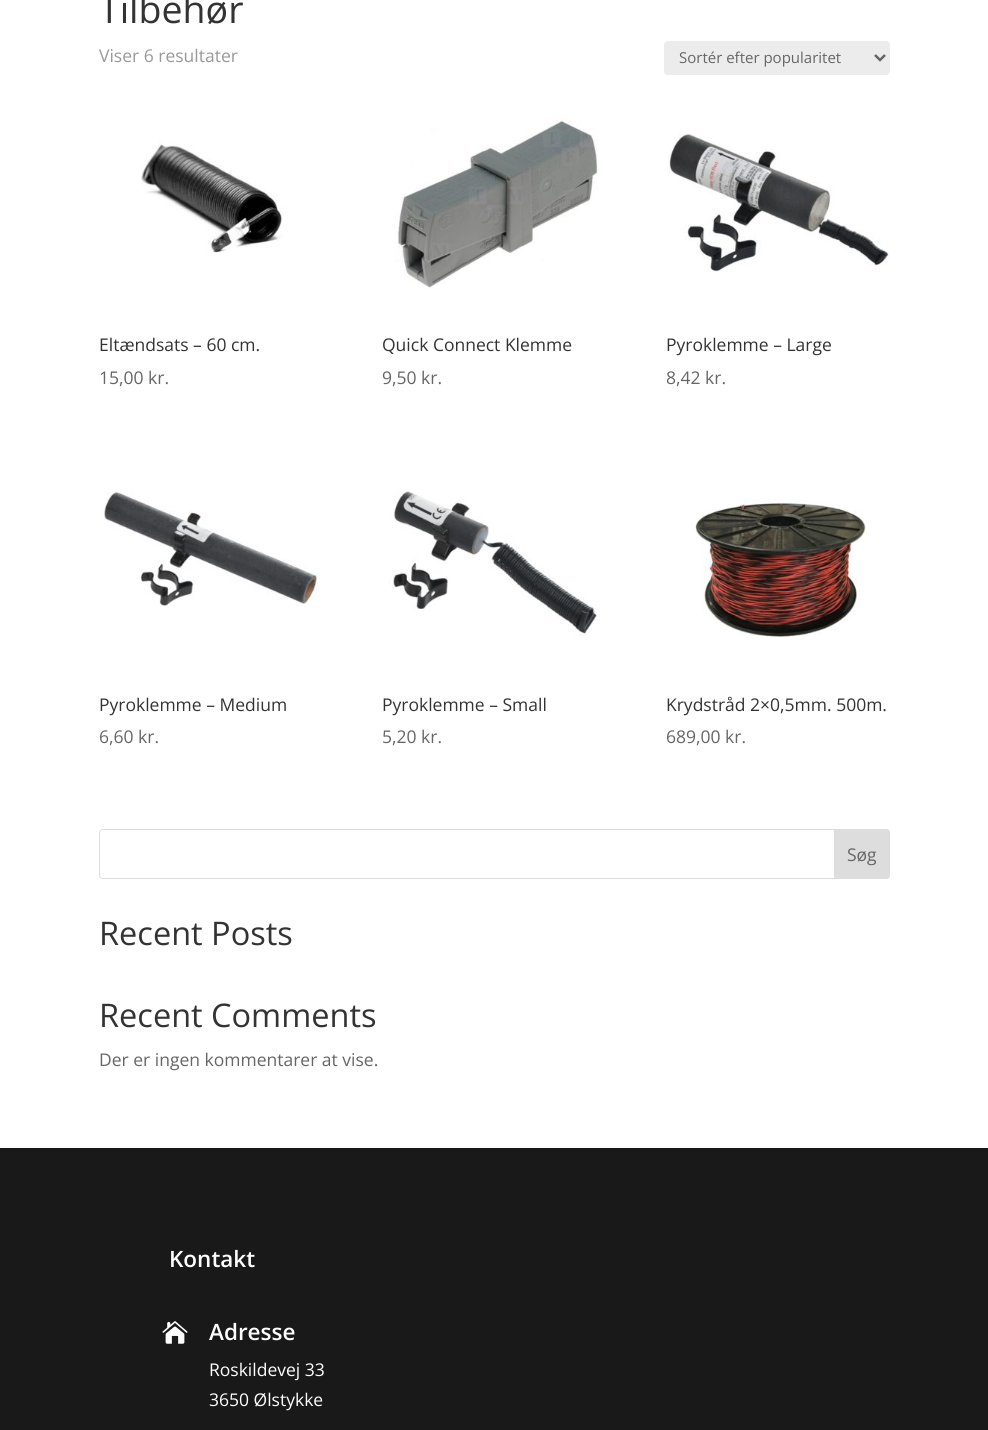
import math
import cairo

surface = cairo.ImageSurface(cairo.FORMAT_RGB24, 988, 1430)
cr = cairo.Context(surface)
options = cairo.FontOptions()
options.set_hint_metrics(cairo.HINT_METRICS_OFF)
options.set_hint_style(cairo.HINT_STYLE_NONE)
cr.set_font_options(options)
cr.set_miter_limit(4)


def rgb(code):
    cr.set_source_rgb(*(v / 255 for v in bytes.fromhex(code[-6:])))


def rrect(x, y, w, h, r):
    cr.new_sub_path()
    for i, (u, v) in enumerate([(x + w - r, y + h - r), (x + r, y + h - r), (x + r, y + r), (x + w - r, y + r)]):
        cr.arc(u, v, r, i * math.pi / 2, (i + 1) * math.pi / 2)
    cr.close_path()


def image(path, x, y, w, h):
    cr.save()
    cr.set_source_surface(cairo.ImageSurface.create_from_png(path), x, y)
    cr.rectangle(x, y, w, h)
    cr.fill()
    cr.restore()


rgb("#ffffff")
cr.paint()
rgb("#ececec")
rrect(664, 41, 226, 34, 4)
cr.fill()
cr.new_path()
cr.move_to(875, 55)
cr.line_to(880, 60)
cr.line_to(885, 55)
rgb("#666666")
cr.set_line_width(2.5)
cr.stroke()
image("img/1.png", 141, 140, 143, 113)
image("img/2.png", 394, 116, 204, 173)
image("img/3.png", 667, 134, 223, 138)
image("img/4.png", 100, 491, 219, 115)
image("img/5.png", 389, 491, 208, 145)
image("img/6.png", 695, 499, 172, 139)
rrect(99.5, 829.5, 790, 49, 3.5)
rgb("#dddddd")
cr.set_line_width(1)
cr.stroke()
cr.new_path()
cr.move_to(834.5, 829.5)
cr.line_to(886, 829.5)
cr.curve_to(888, 829.5, 889.5, 831, 889.5, 833)
cr.line_to(889.5, 875)
cr.curve_to(889.5, 877, 888, 878.5, 886, 878.5)
cr.line_to(834.5, 878.5)
cr.close_path()
cr.fill_preserve()
cr.stroke()
rgb("#191919")
cr.rectangle(0, 1148, 988, 282)
cr.fill()
image("img/7.png", 162, 1321, 26, 23)
cr.select_font_face("Open Sans")
cr.set_font_size(37.5)
rgb("#333333")
cr.move_to(99, 23)
cr.show_text("Tilbehør")
cr.set_font_size(17.5)
rgb("#999999")
cr.move_to(99, 62)
cr.show_text("Viser 6 resultater")
cr.set_font_size(15)
rgb("#666666")
cr.move_to(679, 63)
cr.show_text("Sortér efter popularitet")
cr.set_font_size(17.5)
rgb("#333333")
cr.move_to(99, 351)
cr.show_text("Eltændsats – 60 cm.")
rgb("#666666")
cr.move_to(99, 384)
cr.show_text("15,00 kr.")
rgb("#333333")
cr.move_to(382, 351)
cr.show_text("Quick Connect Klemme")
rgb("#666666")
cr.move_to(382, 384)
cr.show_text("9,50 kr.")
rgb("#333333")
cr.move_to(666, 351)
cr.show_text("Pyroklemme – Large")
rgb("#666666")
cr.move_to(666, 384)
cr.show_text("8,42 kr.")
rgb("#333333")
cr.move_to(99, 711)
cr.show_text("Pyroklemme – Medium")
rgb("#666666")
cr.move_to(99, 743)
cr.show_text("6,60 kr.")
rgb("#333333")
cr.move_to(382, 711)
cr.show_text("Pyroklemme – Small")
rgb("#666666")
cr.move_to(382, 743)
cr.show_text("5,20 kr.")
rgb("#333333")
cr.move_to(666, 711)
cr.show_text("Krydstråd 2×0,5mm. 500m.")
rgb("#666666")
cr.move_to(666, 743)
cr.show_text("689,00 kr.")
cr.move_to(847, 861)
cr.show_text("Søg")
cr.set_font_size(32.5)
rgb("#333333")
cr.move_to(99, 945)
cr.show_text("Recent Posts")
cr.move_to(99, 1027)
cr.show_text("Recent Comments")
cr.set_font_size(17.5)
rgb("#666666")
cr.move_to(99, 1066)
cr.show_text("Der er ingen kommentarer at vise.")
cr.select_font_face("Open Sans SemiBold")
cr.set_font_size(22.5)
rgb("#ffffff")
cr.move_to(169, 1267)
cr.show_text("Kontakt")
cr.move_to(209, 1340)
cr.show_text("Adresse")
cr.select_font_face("Open Sans")
cr.set_font_size(17.5)
cr.move_to(209, 1376)
cr.show_text("Roskildevej 33")
cr.move_to(209, 1406)
cr.show_text("3650 Ølstykke")
surface.write_to_png("page.png")
